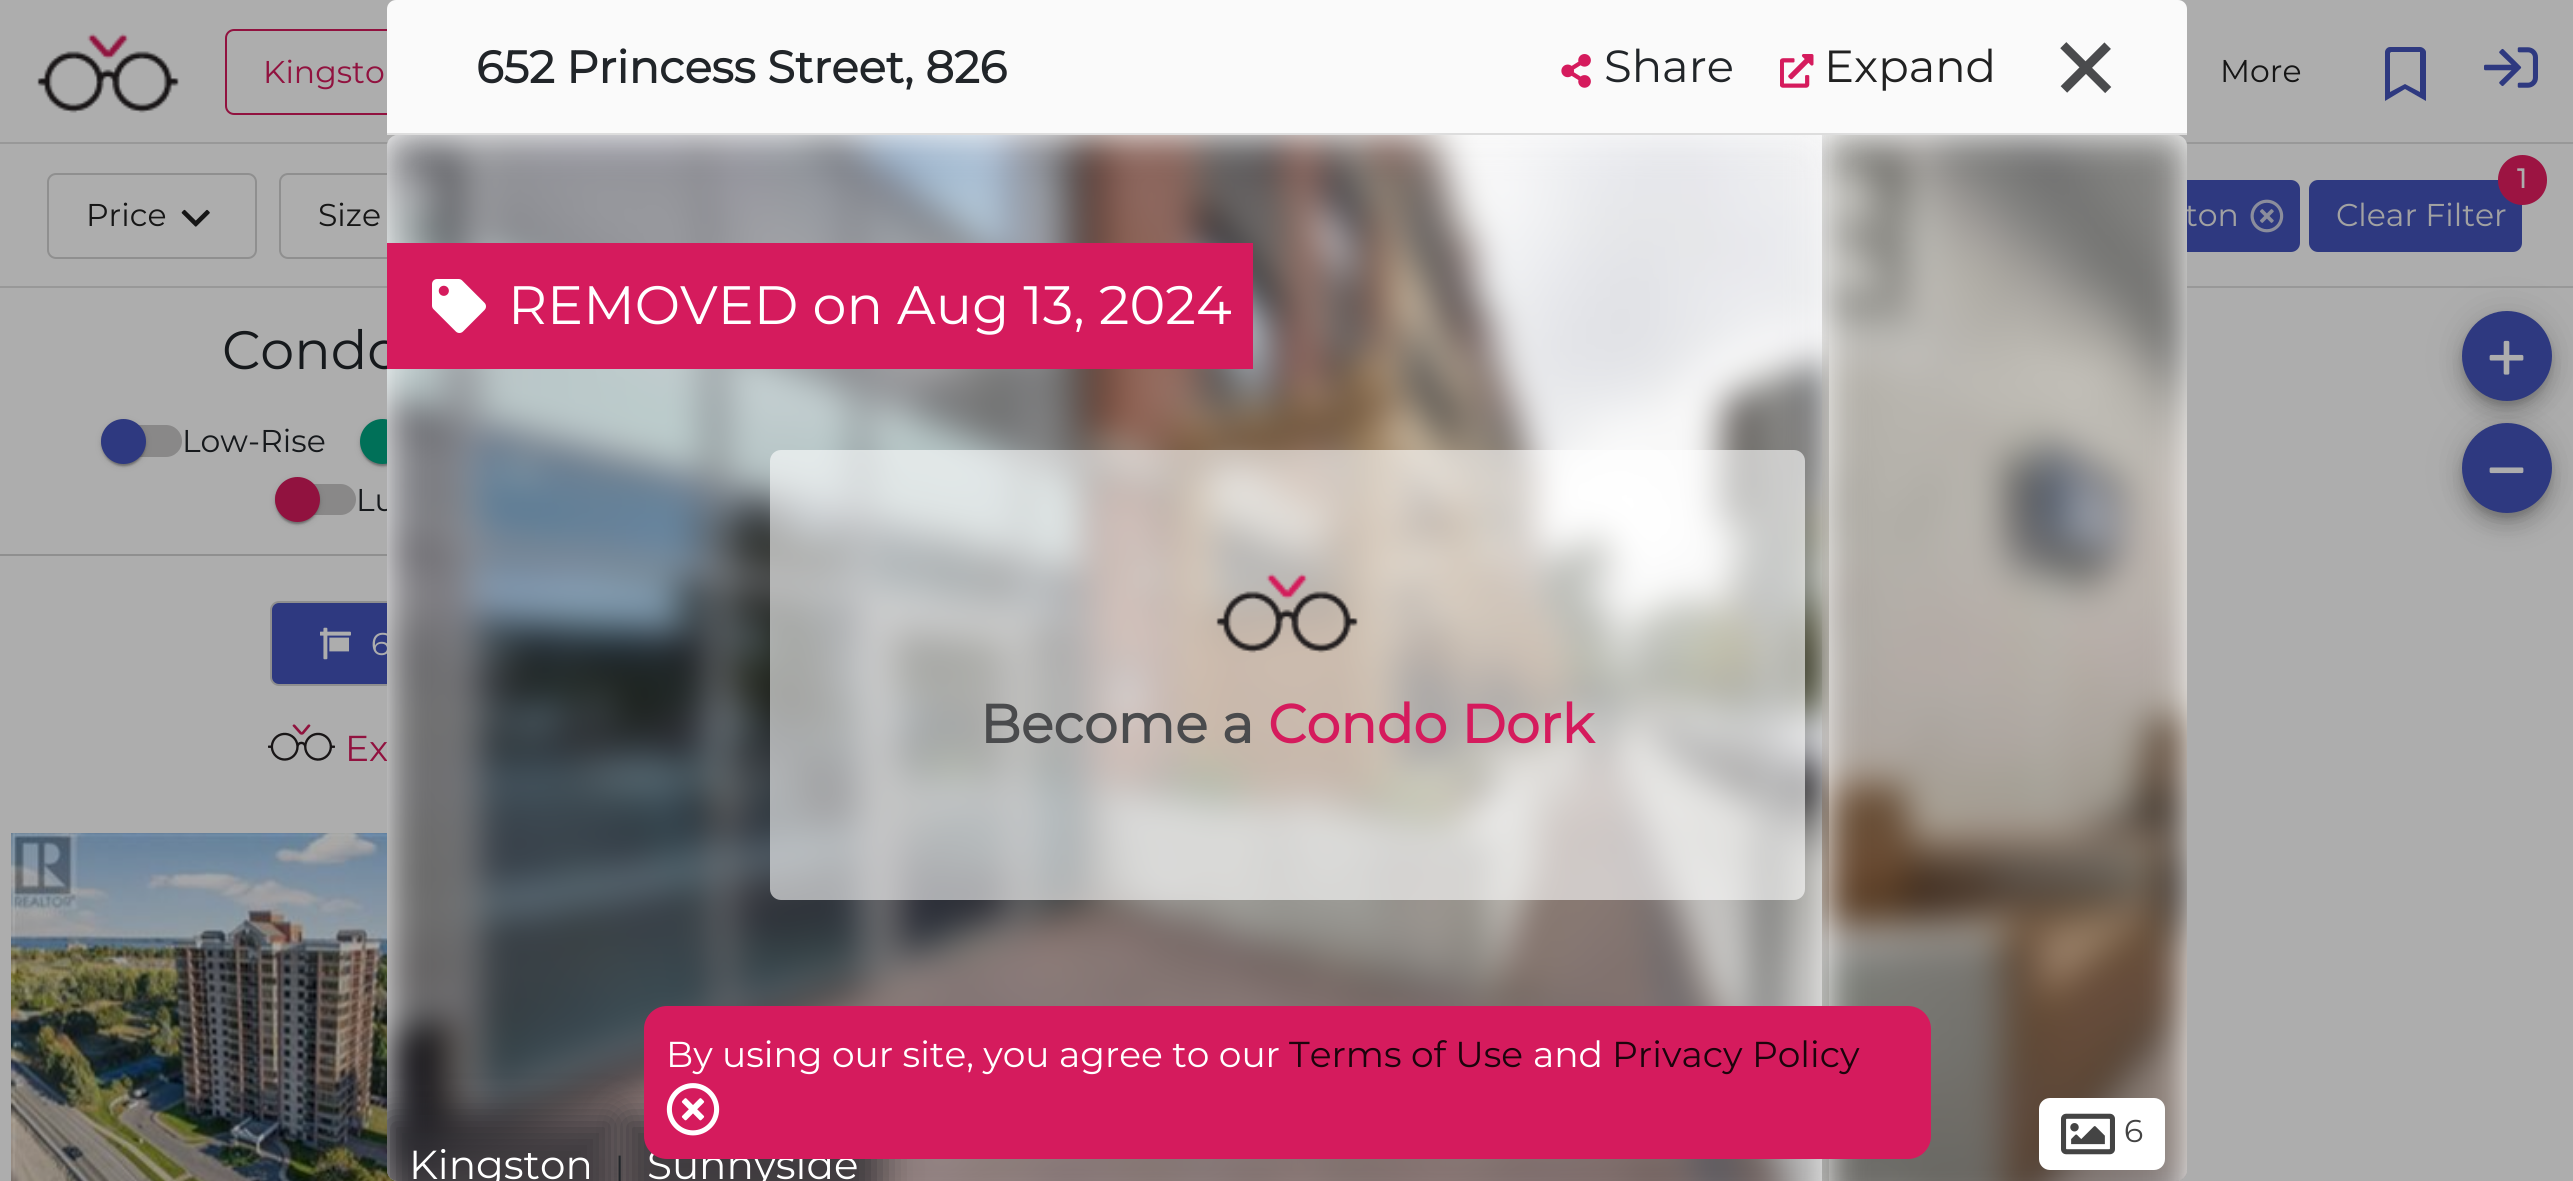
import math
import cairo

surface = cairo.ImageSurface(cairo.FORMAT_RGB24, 2573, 1181)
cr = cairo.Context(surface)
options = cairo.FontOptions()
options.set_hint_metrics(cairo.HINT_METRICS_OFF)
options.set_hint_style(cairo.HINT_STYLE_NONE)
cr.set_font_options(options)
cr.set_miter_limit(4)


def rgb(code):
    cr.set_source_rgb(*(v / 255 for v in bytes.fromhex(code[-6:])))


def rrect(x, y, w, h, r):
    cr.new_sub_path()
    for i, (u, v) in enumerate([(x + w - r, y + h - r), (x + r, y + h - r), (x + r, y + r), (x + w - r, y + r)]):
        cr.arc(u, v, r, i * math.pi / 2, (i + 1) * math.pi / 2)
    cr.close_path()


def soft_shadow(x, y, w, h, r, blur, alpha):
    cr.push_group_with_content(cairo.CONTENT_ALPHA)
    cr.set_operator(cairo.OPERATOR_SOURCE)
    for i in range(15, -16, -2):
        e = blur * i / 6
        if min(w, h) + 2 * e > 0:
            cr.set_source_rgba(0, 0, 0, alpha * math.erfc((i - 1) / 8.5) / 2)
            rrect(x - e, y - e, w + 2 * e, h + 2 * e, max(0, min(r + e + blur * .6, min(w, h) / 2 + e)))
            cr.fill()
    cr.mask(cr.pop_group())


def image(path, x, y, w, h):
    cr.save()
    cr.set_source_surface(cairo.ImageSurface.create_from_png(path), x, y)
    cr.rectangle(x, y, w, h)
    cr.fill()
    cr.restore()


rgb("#adadad")
cr.paint()
rrect(226, 30, 279, 84, 8)
rgb("#91123f")
cr.stroke()
rgb("#fafafa")
cr.new_path()
cr.move_to(396, 0)
cr.line_to(2178, 0)
cr.curve_to(2183, 0, 2187, 4, 2187, 9)
cr.line_to(2187, 135)
cr.line_to(387, 135)
cr.line_to(387, 9)
cr.curve_to(387, 4, 391, 0, 396, 0)
cr.close_path()
cr.fill()
rgb("#dddddd")
cr.rectangle(387, 133, 1800, 2)
cr.fill()
image("img/1.png", 1561, 54, 30, 34)
image("img/2.png", 1780, 54, 34, 34)
rgb("#989898")
cr.rectangle(0, 286, 2573, 2)
cr.fill()
rrect(48, 174, 208, 84, 8)
rgb("#8f8f8f")
cr.stroke()
image("img/8.png", 181, 209, 29, 18)
rrect(280, 174, 192, 84, 8)
cr.stroke()
rgb("#2e3980")
rrect(2070, 180, 230, 72, 9)
cr.fill()
image("img/9.png", 2250, 199, 34, 34)
rrect(2309, 180, 213, 72, 9)
cr.fill()
rgb("#8f8f8f")
cr.rectangle(0, 554, 387, 2)
cr.fill()
rgb("#898888")
rrect(101, 425, 81, 32, 16)
cr.fill()
rgb("#000000")
soft_shadow(101, 421, 45, 45, 22.5, 3.5, 0.12)
soft_shadow(101, 421, 45, 45, 22.5, 1, 0.14)
soft_shadow(104, 425, 40, 41, 20, 1, 0.2)
rgb("#2e3980")
cr.arc(123.5, 441.5, 22.5, 0, 2 * math.pi)
cr.fill()
rgb("#000000")
soft_shadow(360, 421, 45, 45, 22.5, 3.5, 0.12)
soft_shadow(360, 421, 45, 45, 22.5, 1, 0.14)
soft_shadow(362, 425, 41, 41, 20.5, 1, 0.2)
rgb("#007058")
cr.arc(382.5, 441.5, 22.5, 0, 2 * math.pi)
cr.fill()
rgb("#898888")
rrect(275, 484, 81, 31, 15.5)
cr.fill()
rgb("#000000")
soft_shadow(275, 479, 45, 45, 22.5, 3.5, 0.12)
soft_shadow(275, 479, 45, 45, 22.5, 1, 0.14)
soft_shadow(277, 484, 40, 40, 20, 1, 0.2)
rgb("#91123f")
cr.arc(297.5, 499.5, 22.5, 0, 2 * math.pi)
cr.fill()
rgb("#2e3980")
rrect(271, 602, 304, 83, 8)
cr.fill_preserve()
rgb("#8f8f8f")
cr.stroke()
image("img/10.png", 320, 627, 31, 33)
image("img/11.png", 268, 724, 67, 37)
image("img/12.png", 11, 833, 387, 348)
rgb("#000000")
soft_shadow(2462, 313, 90, 90, 45, 20, 0.12)
soft_shadow(2462, 324, 90, 90, 45, 11, 0.14)
soft_shadow(2464, 320, 85, 85, 42.5, 5.5, 0.2)
rgb("#2e3980")
cr.arc(2507, 356, 45, 0, 2 * math.pi)
cr.fill()
image("img/13.png", 2489, 340, 35, 35)
rgb("#000000")
soft_shadow(2462, 425, 90, 90, 45, 20, 0.12)
soft_shadow(2462, 437, 90, 90, 45, 11, 0.14)
soft_shadow(2464, 432, 85, 86, 42.5, 5.5, 0.2)
rgb("#2e3980")
cr.arc(2507, 468, 45, 0, 2 * math.pi)
cr.fill()
image("img/14.png", 2489, 467, 35, 7)
rgb("#989898")
cr.rectangle(0, 142, 2573, 2)
cr.fill()
image("img/15.png", 37, 33, 142, 80)
rgb("#2e3980")
cr.new_path()
cr.move_to(2420, 47)
cr.line_to(2390, 47)
cr.curve_to(2387, 47, 2385, 50, 2385, 52)
cr.line_to(2385, 101)
cr.line_to(2405, 89)
cr.line_to(2426, 101)
cr.line_to(2426, 52)
cr.curve_to(2426, 50, 2423, 47, 2420, 47)
cr.close_path()
cr.move_to(2420, 92)
cr.line_to(2405, 84)
cr.line_to(2390, 92)
cr.line_to(2390, 53)
cr.line_to(2391, 52)
cr.line_to(2420, 52)
cr.line_to(2420, 53)
cr.close_path()
cr.fill()
image("img/16.png", 2484, 47, 54, 41)
cr.select_font_face("Montserrat", cairo.FONT_SLANT_NORMAL, cairo.FONT_WEIGHT_BOLD)
cr.set_font_size(45)
rgb("#212529")
cr.move_to(476, 83)
cr.show_text("652 Princess Street, 826")
cr.select_font_face("Montserrat Thin")
cr.move_to(1604, 82)
cr.show_text("Share")
rgb("#212121")
cr.move_to(1824, 82)
cr.show_text("Expand")
cr.set_font_size(146)
rgb("#4a4b4d")
cr.save()
cr.translate(2020, 74)
cr.rotate(45 * math.pi / 180)
cr.move_to(0, 0)
cr.show_text("+")
cr.restore()
cr.set_font_size(31.5)
rgb("#161616")
cr.move_to(86, 226)
cr.show_text("Price")
cr.move_to(318, 226)
cr.show_text("Size")
rgb("#a2a2a2")
cr.move_to(2185, 226)
cr.show_text("ton")
cr.move_to(2336, 226)
cr.show_text("Clear Filter")
rgb("#9c1442")
rrect(2498, 155, 49, 50, 24.5)
cr.fill()
cr.select_font_face("Montserrat", cairo.FONT_SLANT_NORMAL, cairo.FONT_WEIGHT_BOLD)
cr.set_font_size(27)
rgb("#adadad")
cr.move_to(2517, 188)
cr.show_text("1")
cr.select_font_face("Montserrat Thin")
cr.set_font_size(54)
rgb("#16191c")
cr.move_to(222, 369)
cr.show_text("Condo")
cr.set_font_size(31.5)
cr.move_to(182, 452)
cr.show_text("Low-Rise")
cr.move_to(356, 511)
cr.show_text("Lu")
rgb("#adadad")
cr.move_to(371, 655)
cr.show_text("6")
cr.set_font_size(36)
rgb("#91123f")
cr.move_to(345, 761)
cr.show_text("Ex")
rgb("#fafafa")
rrect(387, 135, 1800, 1046, 11)
cr.fill()
image("img/3.png", 387, 135, 1442, 1046)
rgb("#2d2c31")
soft_shadow(623, 1118, 257, 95, 0, 18, 0.8)
cr.save()
rrect(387, 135, 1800, 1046, 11)
cr.clip()
soft_shadow(387, 1118, 227, 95, 0, 18, 0.8)
cr.restore()
cr.set_font_size(40.5)
rgb("#ffffff")
cr.move_to(647, 1179)
cr.show_text("Sunnyside")
cr.set_font_size(31.5)
rgb("#212529")
cr.move_to(615, 1179)
cr.show_text("|")
cr.set_font_size(40.5)
rgb("#ffffff")
cr.move_to(409, 1179)
cr.show_text("Kingston")
cr.set_source_rgba(1, 1, 1, 0.6)
rrect(770, 450, 1035, 450, 11)
cr.fill()
cr.select_font_face("Montserrat", cairo.FONT_SLANT_NORMAL, cairo.FONT_WEIGHT_BOLD)
cr.set_font_size(54)
rgb("#d51b5d")
cr.move_to(1268, 743)
cr.show_text("Condo Dork")
rgb("#4a4b4d")
cr.move_to(980, 743)
cr.show_text("Become a")
image("img/6.png", 1216, 573, 142, 80)
rgb("#d51b5d")
cr.rectangle(387, 243, 866, 126)
cr.fill()
image("img/5.png", 432, 279, 54, 54)
cr.select_font_face("Montserrat Thin")
rgb("#ffffff")
cr.move_to(508, 324)
cr.show_text("REMOVED on Aug 13, 2024")
image("img/4.png", 1822, 135, 365, 1046)
rrect(2039, 1098, 126, 72, 11)
cr.fill()
image("img/7.png", 2061, 1113, 54, 42)
cr.set_font_size(31.5)
rgb("#444444")
cr.move_to(2124, 1142)
cr.show_text("6")
rgb("#91123f")
cr.move_to(263, 83)
cr.show_text("Kingsto")
rgb("#161616")
cr.move_to(2220, 82)
cr.show_text("More")
rgb("#d51b5d")
rrect(644, 1006, 1287, 153, 23)
cr.fill()
cr.set_font_size(36)
rgb("#ffffff")
cr.move_to(666, 1067)
cr.show_text("By using our site, you agree to our")
rgb("#1c040c")
cr.move_to(1289, 1067)
cr.show_text("Terms of Use")
rgb("#ffffff")
cr.move_to(1533, 1067)
cr.show_text("and")
rgb("#1c040c")
cr.move_to(1612, 1067)
cr.show_text("Privacy Policy")
image("img/17.png", 666, 1083, 54, 53)
surface.write_to_png("page.png")
